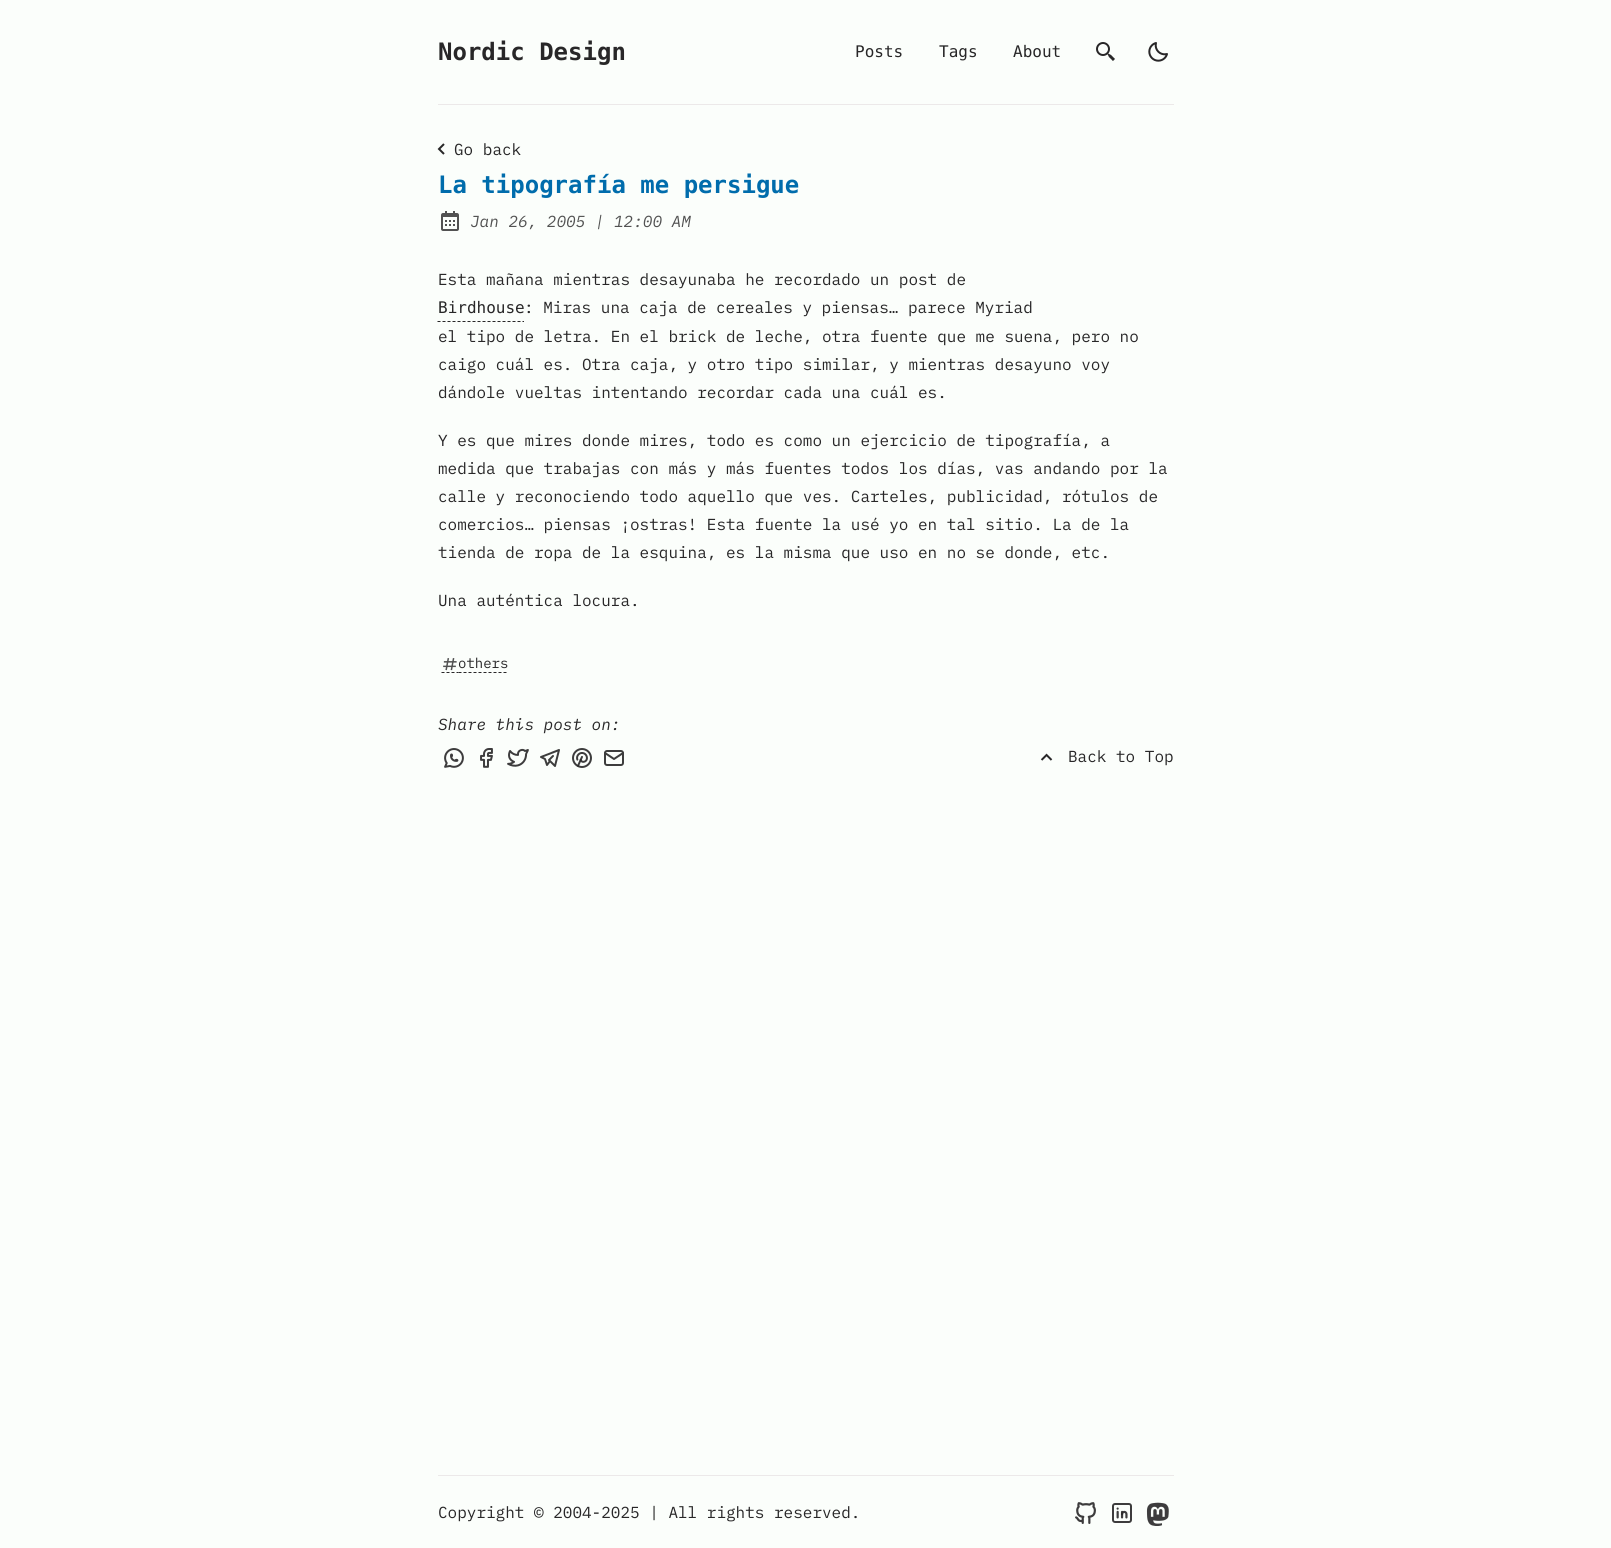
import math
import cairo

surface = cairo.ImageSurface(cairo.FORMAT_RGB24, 1611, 1548)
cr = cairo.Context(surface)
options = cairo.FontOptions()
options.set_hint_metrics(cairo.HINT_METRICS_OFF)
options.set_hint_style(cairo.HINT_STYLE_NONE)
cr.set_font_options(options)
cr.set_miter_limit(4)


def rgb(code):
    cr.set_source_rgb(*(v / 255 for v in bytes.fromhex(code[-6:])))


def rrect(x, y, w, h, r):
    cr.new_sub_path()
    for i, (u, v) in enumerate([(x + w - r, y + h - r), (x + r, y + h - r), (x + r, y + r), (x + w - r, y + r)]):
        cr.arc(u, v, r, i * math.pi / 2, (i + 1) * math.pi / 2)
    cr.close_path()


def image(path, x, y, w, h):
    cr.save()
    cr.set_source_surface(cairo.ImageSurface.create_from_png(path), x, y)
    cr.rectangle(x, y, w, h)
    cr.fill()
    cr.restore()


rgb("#fbfefb")
cr.paint()
image("img/1.png", 1096, 42, 19, 19)
image("img/2.png", 1148, 42, 20, 20)
rgb("#ece9e9")
cr.rectangle(438, 104, 736, 1)
cr.fill()
image("img/3.png", 437, 143, 8, 12)
image("img/4.png", 441, 211, 18, 20)
cr.new_path()
cr.move_to(437.5, 321.5)
cr.line_to(524, 321.5)
rgb("#282728")
cr.set_line_width(1)
cr.set_dash([3, 2])
cr.stroke()
image("img/5.png", 443, 658, 14, 13)
cr.new_path()
cr.move_to(441.5, 672.5)
cr.line_to(444.5, 672.5)
cr.move_to(446.5, 672.5)
cr.line_to(449.5, 672.5)
cr.move_to(451.5, 672.5)
cr.line_to(454.5, 672.5)
cr.move_to(456.5, 672.5)
cr.line_to(458.5, 672.5)
cr.set_dash([])
cr.stroke()
cr.new_path()
cr.move_to(458.5, 672.5)
cr.line_to(508.5, 672.5)
cr.set_dash([3, 2])
cr.stroke()
image("img/6.png", 444, 748, 20, 20)
image("img/7.png", 480, 748, 13, 20)
image("img/8.png", 507, 748, 22, 19)
cr.new_path()
cr.move_to(553, 756)
cr.line_to(549, 760)
cr.line_to(555, 766)
cr.line_to(559, 750)
cr.line_to(541, 757)
cr.line_to(545, 759)
cr.line_to(547, 765)
cr.line_to(550, 761)
rgb("#3d3d3d")
cr.set_line_width(2)
cr.set_line_cap(cairo.LINE_CAP_ROUND)
cr.set_line_join(cairo.LINE_JOIN_ROUND)
cr.set_dash([])
cr.stroke()
image("img/9.png", 572, 748, 20, 20)
rrect(605, 751, 18, 14, 2)
cr.set_line_cap(cairo.LINE_CAP_BUTT)
cr.set_line_join(cairo.LINE_JOIN_MITER)
cr.stroke()
cr.new_path()
cr.move_to(605, 753)
cr.line_to(614, 759)
cr.line_to(623, 753)
cr.set_line_cap(cairo.LINE_CAP_ROUND)
cr.set_line_join(cairo.LINE_JOIN_ROUND)
cr.stroke()
image("img/10.png", 1040, 753, 13, 8)
rgb("#ece9e9")
cr.rectangle(438, 1475, 736, 1)
cr.fill()
image("img/11.png", 1075, 1502, 21, 22)
image("img/12.png", 1112, 1503, 20, 20)
image("img/13.png", 1146, 1502, 23, 24)
cr.select_font_face("DejaVu Sans Mono", cairo.FONT_SLANT_NORMAL, cairo.FONT_WEIGHT_BOLD)
cr.set_font_size(24)
rgb("#282728")
cr.move_to(438, 60)
cr.show_text("Nordic Design")
cr.select_font_face("DejaVu Sans Mono")
cr.set_font_size(16)
for x, y, s in [
    (855, 57, "Posts"),
    (939, 57, "Tags"),
    (1013, 57, "About"),
]:
    cr.move_to(x, y)
    cr.show_text(s)
cr.select_font_face("IBM Plex Mono")
cr.move_to(454, 155)
cr.show_text("Go back")
cr.select_font_face("DejaVu Sans Mono", cairo.FONT_SLANT_NORMAL, cairo.FONT_WEIGHT_BOLD)
cr.set_font_size(24)
rgb("#006cac")
cr.move_to(438, 193)
cr.show_text("La tipografía me persigue")
cr.select_font_face("IBM Plex Mono", cairo.FONT_SLANT_ITALIC)
cr.set_font_size(16)
rgb("#525252")
cr.move_to(470, 227)
cr.show_text("Jan 26, 2005 | 12:00 AM")
cr.select_font_face("IBM Plex Mono")
rgb("#282728")
cr.move_to(438, 285)
cr.show_text("Esta mañana mientras desayunaba he recordado un post de")
cr.select_font_face("DejaVu Sans Mono")
cr.move_to(438, 313)
cr.show_text("Birdhouse")
cr.select_font_face("IBM Plex Mono")
for x, y, s in [
    (524, 313, ": Miras una caja de cereales y piensas… parece Myriad"),
    (438, 342, "el tipo de letra. En el brick de leche, otra fuente que me suena, pero no"),
    (438, 370, "caigo cuál es. Otra caja, y otro tipo similar, y mientras desayuno voy"),
    (438, 398, "dándole vueltas intentando recordar cada una cuál es."),
    (438, 446, "Y es que mires donde mires, todo es como un ejercicio de tipografía, a"),
    (438, 474, "medida que trabajas con más y más fuentes todos los días, vas andando por la"),
    (438, 502, "calle y reconociendo todo aquello que ves. Carteles, publicidad, rótulos de"),
    (438, 530, "comercios… piensas ¡ostras! Esta fuente la usé yo en tal sitio. La de la"),
    (438, 558, "tienda de ropa de la esquina, es la misma que uso en no se donde, etc."),
    (438, 606, "Una auténtica locura."),
]:
    cr.move_to(x, y)
    cr.show_text(s)
cr.set_font_size(14)
cr.move_to(458, 668)
cr.show_text("others")
cr.select_font_face("IBM Plex Mono", cairo.FONT_SLANT_ITALIC)
cr.set_font_size(16)
cr.move_to(438, 730)
cr.show_text("Share this post on:")
cr.select_font_face("IBM Plex Mono")
cr.move_to(1068, 762)
cr.show_text("Back to Top")
cr.move_to(438, 1518)
cr.show_text("Copyright © 2004-2025 | All rights reserved.")
surface.write_to_png("page.png")
